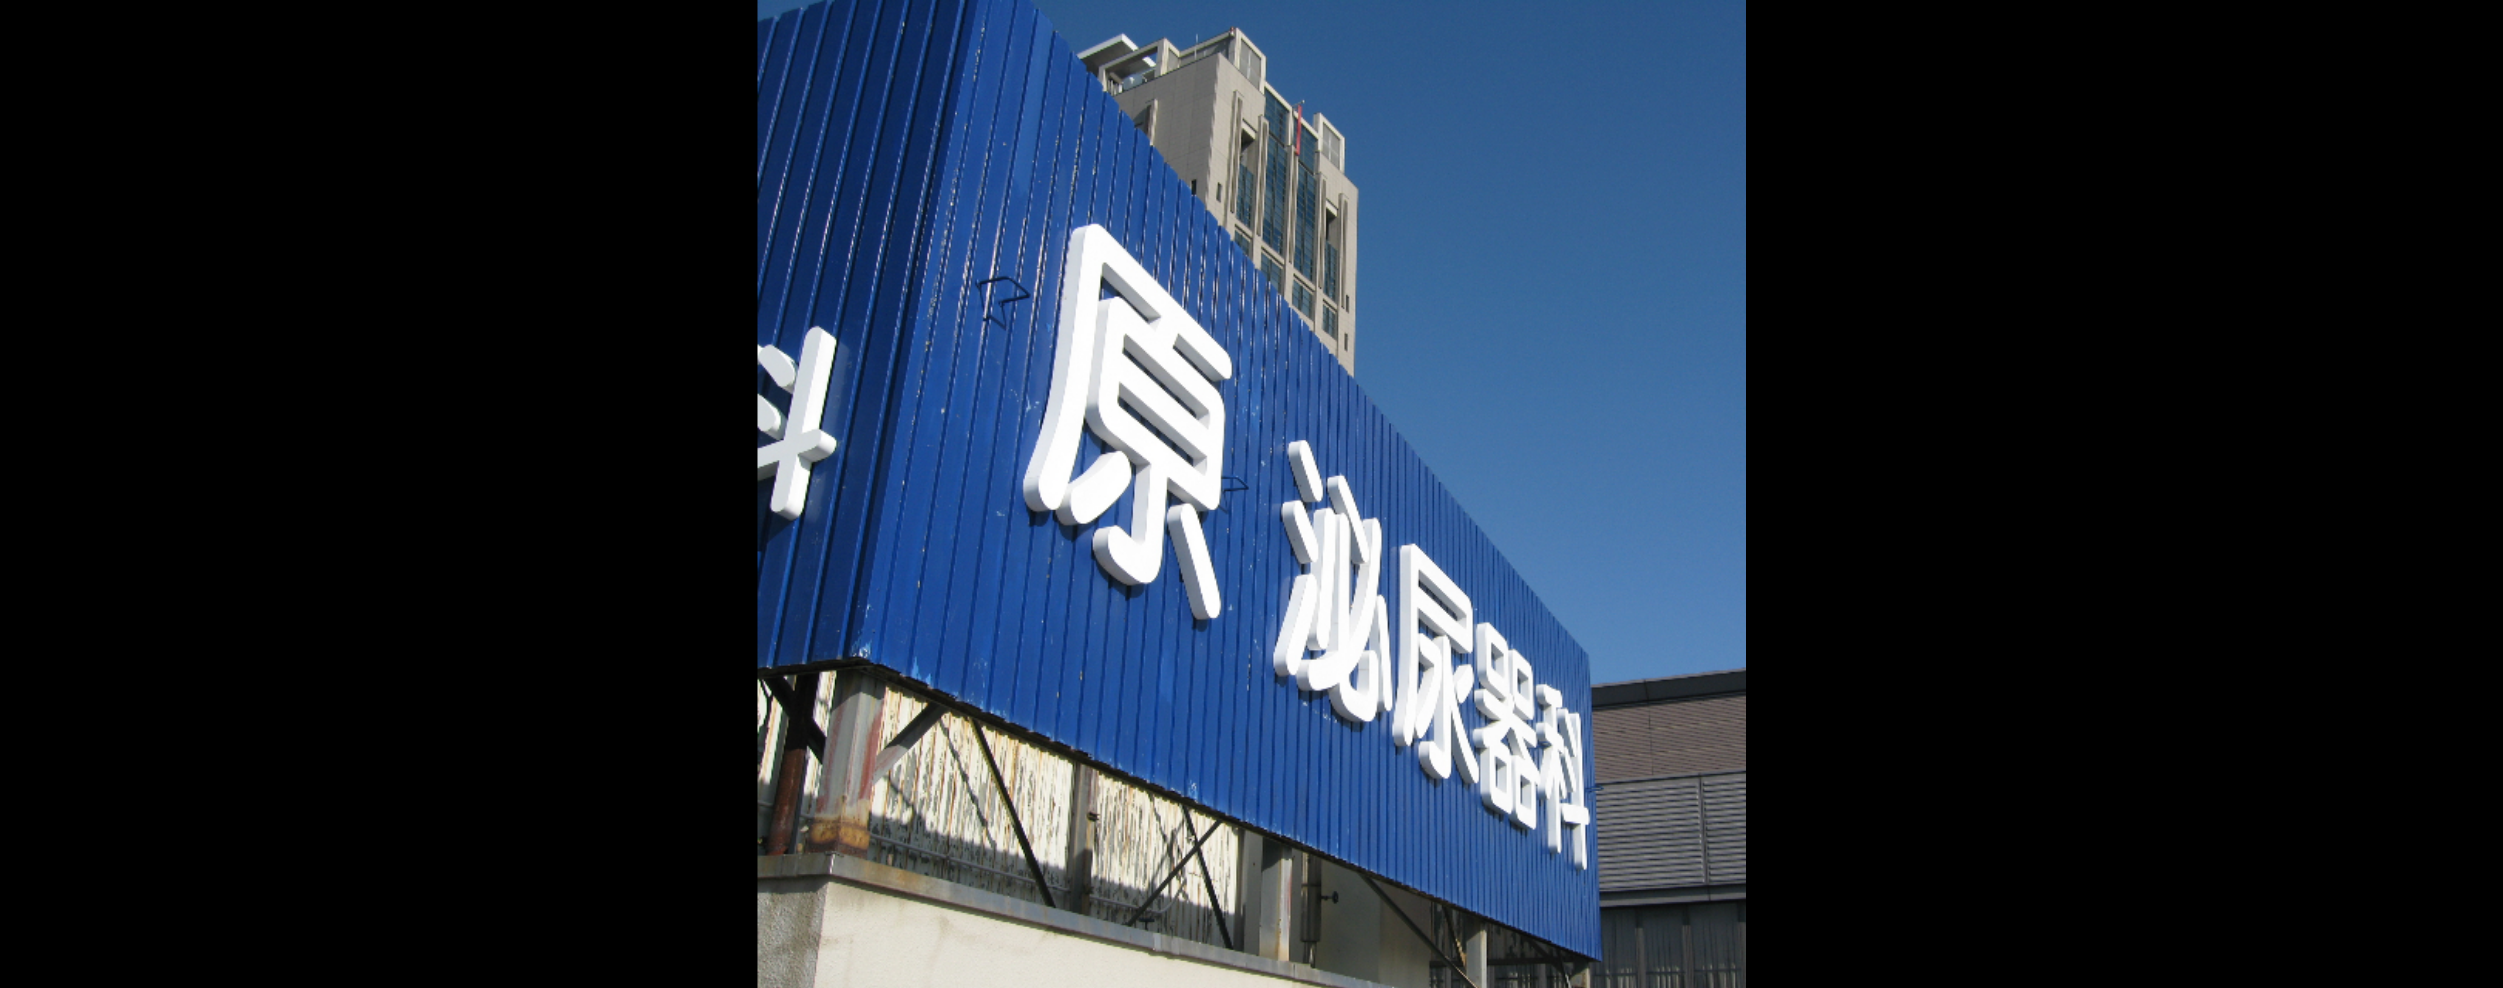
import math
import cairo

surface = cairo.ImageSurface(cairo.FORMAT_RGB24, 2503, 988)
cr = cairo.Context(surface)
options = cairo.FontOptions()
options.set_hint_metrics(cairo.HINT_METRICS_OFF)
options.set_hint_style(cairo.HINT_STYLE_NONE)
cr.set_font_options(options)
cr.set_miter_limit(4)


def rgb(code):
    cr.set_source_rgb(*(v / 255 for v in bytes.fromhex(code[-6:])))


def image(path, x, y, w, h):
    cr.save()
    cr.set_source_surface(cairo.ImageSurface.create_from_png(path), x, y)
    cr.rectangle(x, y, w, h)
    cr.fill()
    cr.restore()


rgb("#000000")
cr.paint()
image("img/1.png", 757, 0, 989, 988)
surface.write_to_png("page.png")
